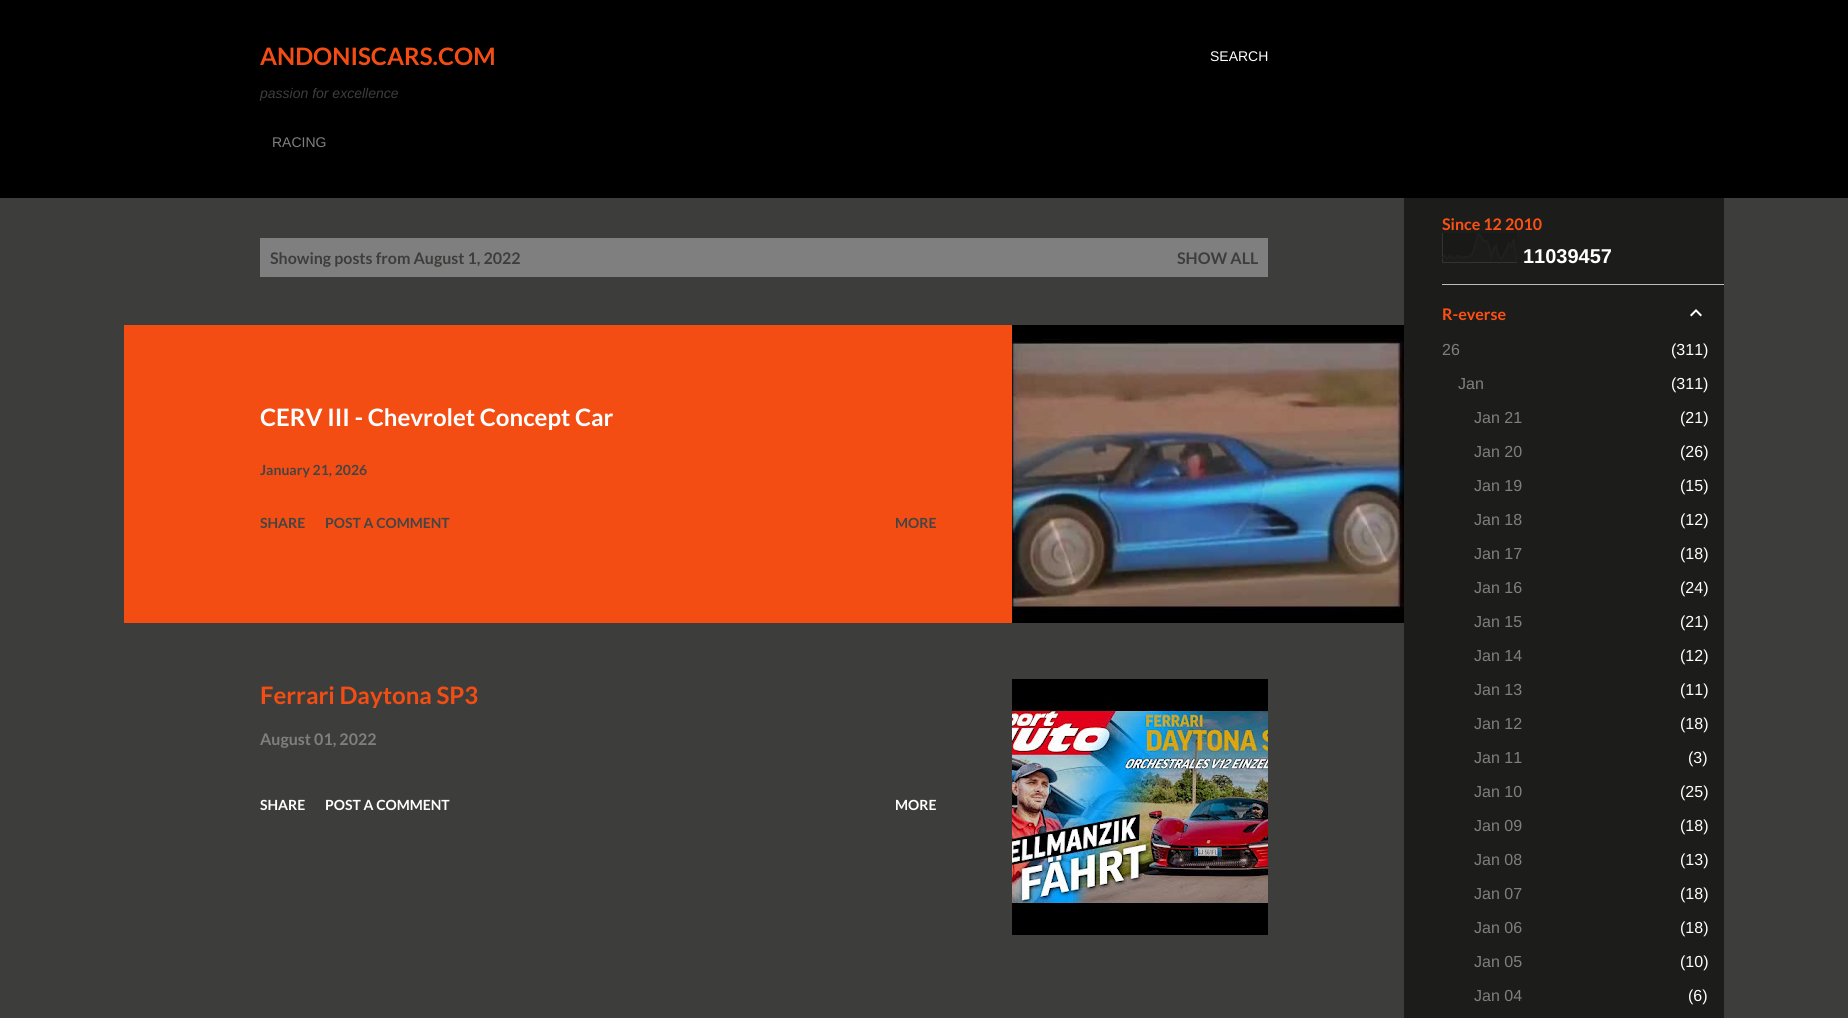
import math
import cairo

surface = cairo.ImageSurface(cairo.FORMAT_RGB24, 1848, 1018)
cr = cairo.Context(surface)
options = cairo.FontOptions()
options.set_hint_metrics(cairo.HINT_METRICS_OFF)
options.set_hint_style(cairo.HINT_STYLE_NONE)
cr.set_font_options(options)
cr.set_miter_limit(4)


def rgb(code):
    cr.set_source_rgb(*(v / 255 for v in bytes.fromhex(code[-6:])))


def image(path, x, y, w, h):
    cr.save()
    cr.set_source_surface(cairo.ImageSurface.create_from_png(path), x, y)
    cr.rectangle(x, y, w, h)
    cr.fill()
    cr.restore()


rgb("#3d3e3b")
cr.paint()
for x, y, w, h, color in [
    (0, 0, 1848, 198, "#000000"),
    (260, 238, 1008, 39, "#7f7f7f"),
    (124, 325, 888, 298, "#f34d13"),
]:
    rgb(color)
    cr.rectangle(x, y, w, h)
    cr.fill()
image("img/1.png", 1012, 325, 392, 298)
rgb("#000000")
cr.rectangle(1012, 679, 256, 256)
cr.fill()
image("img/2.png", 1012, 703, 256, 200)
rgb("#1c1d1b")
cr.rectangle(1404, 198, 320, 820)
cr.fill()
image("img/3.png", 1442, 233, 75, 30)
rgb("#bdbdbd")
cr.rectangle(1442, 284, 282, 1)
cr.fill()
image("img/4.png", 1690, 309, 12, 8)
cr.select_font_face("Lato", cairo.FONT_SLANT_NORMAL, cairo.FONT_WEIGHT_BOLD)
cr.set_font_size(24)
rgb("#f34d13")
cr.move_to(260, 65)
cr.show_text("ANDONISCARS.COM")
cr.select_font_face("Liberation Sans", cairo.FONT_SLANT_ITALIC)
cr.set_font_size(14)
rgb("#3d3e3c")
cr.move_to(260, 98)
cr.show_text("passion for excellence")
cr.select_font_face("Liberation Sans")
rgb("#ffffff")
cr.move_to(1210, 61)
cr.show_text("SEARCH")
rgb("#7f7f7f")
cr.move_to(272, 147)
cr.show_text("RACING")
cr.select_font_face("Lato", cairo.FONT_SLANT_NORMAL, cairo.FONT_WEIGHT_BOLD)
cr.set_font_size(16)
rgb("#3d3e3c")
cr.move_to(270, 264)
cr.show_text("Showing posts from August 1, 2022")
cr.move_to(1177, 264)
cr.show_text("SHOW ALL")
cr.set_font_size(24)
rgb("#ffffff")
cr.move_to(260, 426)
cr.show_text("CERV III - Chevrolet Concept Car")
cr.set_font_size(14)
rgb("#444444")
for x, y, s in [
    (260, 475, "January 21, 2026"),
    (260, 528, "SHARE"),
    (325, 528, "POST A COMMENT"),
    (895, 528, "MORE"),
]:
    cr.move_to(x, y)
    cr.show_text(s)
cr.set_font_size(24)
rgb("#f34d13")
cr.move_to(260, 704)
cr.show_text("Ferrari Daytona SP3")
cr.set_font_size(16)
rgb("#7f7f7f")
cr.move_to(260, 745)
cr.show_text("August 01, 2022")
cr.set_font_size(14)
rgb("#ffffff")
for x, y, s in [
    (260, 810, "SHARE"),
    (325, 810, "POST A COMMENT"),
    (895, 810, "MORE"),
]:
    cr.move_to(x, y)
    cr.show_text(s)
cr.set_font_size(16)
rgb("#ff5013")
cr.move_to(1442, 230)
cr.show_text("Since 12 2010")
cr.select_font_face("Liberation Sans", cairo.FONT_SLANT_NORMAL, cairo.FONT_WEIGHT_BOLD)
cr.set_font_size(20)
rgb("#ffffff")
cr.move_to(1523, 263)
cr.show_text("11039457")
cr.select_font_face("Lato", cairo.FONT_SLANT_NORMAL, cairo.FONT_WEIGHT_BOLD)
cr.set_font_size(16)
rgb("#ff5013")
cr.move_to(1442, 320)
cr.show_text("R-everse")
cr.select_font_face("Liberation Sans")
rgb("#7f7f7f")
cr.move_to(1442, 355)
cr.show_text("26")
rgb("#ffffff")
cr.move_to(1671, 355)
cr.show_text("(311)")
rgb("#7f7f7f")
cr.move_to(1458, 389)
cr.show_text("Jan")
rgb("#ffffff")
cr.move_to(1671, 389)
cr.show_text("(311)")
rgb("#7f7f7f")
cr.move_to(1474, 423)
cr.show_text("Jan 21")
rgb("#ffffff")
cr.move_to(1680, 423)
cr.show_text("(21)")
rgb("#7f7f7f")
cr.move_to(1474, 457)
cr.show_text("Jan 20")
rgb("#ffffff")
cr.move_to(1680, 457)
cr.show_text("(26)")
rgb("#7f7f7f")
cr.move_to(1474, 491)
cr.show_text("Jan 19")
rgb("#ffffff")
cr.move_to(1680, 491)
cr.show_text("(15)")
rgb("#7f7f7f")
cr.move_to(1474, 525)
cr.show_text("Jan 18")
rgb("#ffffff")
cr.move_to(1680, 525)
cr.show_text("(12)")
rgb("#7f7f7f")
cr.move_to(1474, 559)
cr.show_text("Jan 17")
rgb("#ffffff")
cr.move_to(1680, 559)
cr.show_text("(18)")
rgb("#7f7f7f")
cr.move_to(1474, 593)
cr.show_text("Jan 16")
rgb("#ffffff")
cr.move_to(1680, 593)
cr.show_text("(24)")
rgb("#7f7f7f")
cr.move_to(1474, 627)
cr.show_text("Jan 15")
rgb("#ffffff")
cr.move_to(1680, 627)
cr.show_text("(21)")
rgb("#7f7f7f")
cr.move_to(1474, 661)
cr.show_text("Jan 14")
rgb("#ffffff")
cr.move_to(1680, 661)
cr.show_text("(12)")
rgb("#7f7f7f")
cr.move_to(1474, 695)
cr.show_text("Jan 13")
rgb("#ffffff")
cr.move_to(1680, 695)
cr.show_text("(11)")
rgb("#7f7f7f")
cr.move_to(1474, 729)
cr.show_text("Jan 12")
rgb("#ffffff")
cr.move_to(1680, 729)
cr.show_text("(18)")
rgb("#7f7f7f")
cr.move_to(1474, 763)
cr.show_text("Jan 11")
rgb("#ffffff")
cr.move_to(1688, 763)
cr.show_text("(3)")
rgb("#7f7f7f")
cr.move_to(1474, 797)
cr.show_text("Jan 10")
rgb("#ffffff")
cr.move_to(1680, 797)
cr.show_text("(25)")
rgb("#7f7f7f")
cr.move_to(1474, 831)
cr.show_text("Jan 09")
rgb("#ffffff")
cr.move_to(1680, 831)
cr.show_text("(18)")
rgb("#7f7f7f")
cr.move_to(1474, 865)
cr.show_text("Jan 08")
rgb("#ffffff")
cr.move_to(1680, 865)
cr.show_text("(13)")
rgb("#7f7f7f")
cr.move_to(1474, 899)
cr.show_text("Jan 07")
rgb("#ffffff")
cr.move_to(1680, 899)
cr.show_text("(18)")
rgb("#7f7f7f")
cr.move_to(1474, 933)
cr.show_text("Jan 06")
rgb("#ffffff")
cr.move_to(1680, 933)
cr.show_text("(18)")
rgb("#7f7f7f")
cr.move_to(1474, 967)
cr.show_text("Jan 05")
rgb("#ffffff")
cr.move_to(1680, 967)
cr.show_text("(10)")
rgb("#7f7f7f")
cr.move_to(1474, 1001)
cr.show_text("Jan 04")
rgb("#ffffff")
cr.move_to(1688, 1001)
cr.show_text("(6)")
surface.write_to_png("page.png")
